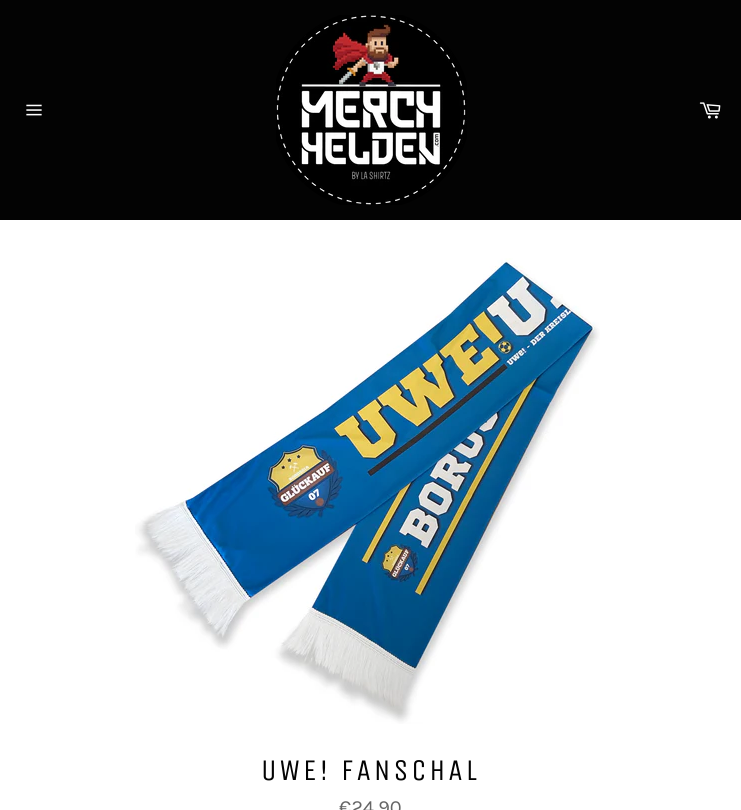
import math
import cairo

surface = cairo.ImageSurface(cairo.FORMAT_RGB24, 741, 810)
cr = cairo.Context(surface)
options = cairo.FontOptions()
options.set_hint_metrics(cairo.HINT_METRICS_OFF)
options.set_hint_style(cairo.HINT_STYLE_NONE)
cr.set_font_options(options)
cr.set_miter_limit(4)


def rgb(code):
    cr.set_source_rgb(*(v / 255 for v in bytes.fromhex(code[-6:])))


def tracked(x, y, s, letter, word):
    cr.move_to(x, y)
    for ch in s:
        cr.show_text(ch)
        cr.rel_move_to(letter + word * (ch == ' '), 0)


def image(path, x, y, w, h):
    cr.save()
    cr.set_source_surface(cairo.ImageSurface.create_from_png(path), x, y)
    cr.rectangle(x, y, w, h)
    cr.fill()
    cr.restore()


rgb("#030303")
cr.paint()
image("img/1.png", 26, 104, 16, 12)
image("img/2.png", 276, 15, 191, 190)
image("img/3.png", 699, 102, 22, 17)
rgb("#ffffff")
cr.rectangle(0, 220, 741, 590)
cr.fill()
image("img/4.png", 135, 258, 465, 466)
cr.select_font_face("Unica One")
cr.set_font_size(30)
rgb("#030303")
tracked(261, 780, "UWE! FANSCHAL", 3, 0)
cr.select_font_face("Karla")
cr.set_font_size(20)
rgb("#666666")
cr.move_to(339, 814)
cr.show_text("€24,90")
surface.write_to_png("page.png")
